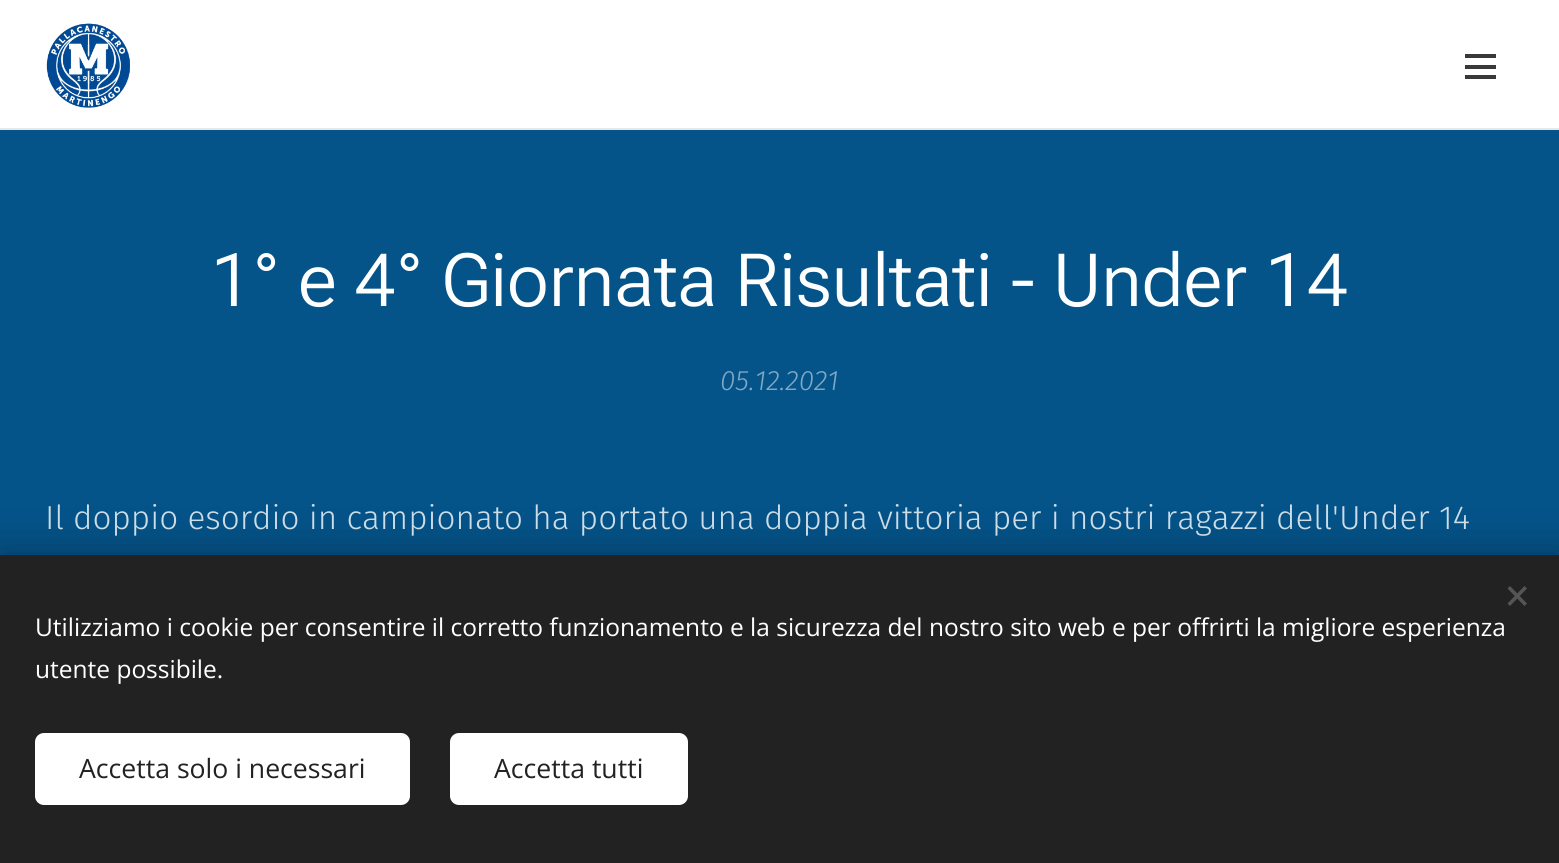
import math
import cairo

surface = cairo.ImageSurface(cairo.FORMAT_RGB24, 1559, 863)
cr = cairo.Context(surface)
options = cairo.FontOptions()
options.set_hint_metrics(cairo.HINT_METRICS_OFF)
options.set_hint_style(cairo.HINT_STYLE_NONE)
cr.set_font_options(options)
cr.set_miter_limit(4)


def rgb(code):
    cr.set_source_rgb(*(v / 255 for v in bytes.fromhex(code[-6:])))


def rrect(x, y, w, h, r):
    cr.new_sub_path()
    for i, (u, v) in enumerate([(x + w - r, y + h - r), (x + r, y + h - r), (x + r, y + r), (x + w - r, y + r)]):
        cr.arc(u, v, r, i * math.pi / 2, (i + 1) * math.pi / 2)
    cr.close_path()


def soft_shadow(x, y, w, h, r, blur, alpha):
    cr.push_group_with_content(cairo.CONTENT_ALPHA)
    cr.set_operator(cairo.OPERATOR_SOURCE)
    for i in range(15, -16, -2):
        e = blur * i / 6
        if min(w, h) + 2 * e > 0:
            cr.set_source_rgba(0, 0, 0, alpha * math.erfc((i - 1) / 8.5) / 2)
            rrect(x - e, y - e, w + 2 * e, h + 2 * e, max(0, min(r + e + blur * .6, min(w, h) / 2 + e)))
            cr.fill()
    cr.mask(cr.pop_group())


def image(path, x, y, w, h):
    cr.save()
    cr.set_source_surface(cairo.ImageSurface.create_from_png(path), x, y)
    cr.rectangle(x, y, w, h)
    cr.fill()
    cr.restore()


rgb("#ffffff")
cr.paint()
image("img/1.png", 46, 23, 84, 85)
for x, y, w, h, color in [
    (1465, 65, 31, 4, "#393939"),
    (1465, 54, 31, 4, "#393939"),
    (1465, 75, 31, 4, "#393939"),
    (0, 128, 1559, 2, "#e8e8e8"),
    (0, 130, 1559, 425, "#045389"),
]:
    rgb(color)
    cr.rectangle(x, y, w, h)
    cr.fill()
rgb("#000000")
soft_shadow(0, 555, 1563, 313, 0, 22, 0.33)
rgb("#222222")
cr.rectangle(0, 555, 1559, 308)
cr.fill()
rgb("#555555")
cr.new_path()
cr.move_to(1507.5, 603.5)
cr.line_to(1524.5, 586)
cr.line_to(1527, 588.5)
cr.line_to(1510, 606)
cr.close_path()
cr.fill()
cr.new_path()
cr.move_to(1510, 586)
cr.line_to(1527, 603.5)
cr.line_to(1524.5, 606)
cr.line_to(1507.5, 588.5)
cr.close_path()
cr.fill()
rgb("#ffffff")
rrect(35, 733, 375, 72, 9)
cr.fill()
rrect(450, 733, 238, 72, 9)
cr.fill()
cr.select_font_face("Roboto Flex Light")
cr.set_font_size(73.5)
cr.move_to(211, 306)
cr.show_text("1° e 4° Giornata Risultati - Under 14")
cr.select_font_face("Fira Sans Light", cairo.FONT_SLANT_ITALIC)
cr.set_font_size(28)
rgb("#82a9c4")
cr.move_to(720, 390)
cr.show_text("05.12.2021")
cr.select_font_face("Fira Sans Light")
cr.set_font_size(33.25)
rgb("#cddde7")
cr.move_to(45, 529)
cr.show_text("Il doppio esordio in campionato ha portato una doppia vittoria per i nostri ragazzi dell'Under 14")
cr.select_font_face("Open Sans")
cr.set_font_size(24.5)
rgb("#ffffff")
cr.move_to(35, 636)
cr.show_text("Utilizziamo i cookie per consentire il corretto funzionamento e la sicurezza del nostro sito web e per offrirti la migliore esperienza")
cr.move_to(35, 678)
cr.show_text("utente possibile.")
cr.set_font_size(26.6)
rgb("#222222")
cr.move_to(79, 778)
cr.show_text("Accetta solo i necessari")
cr.move_to(494, 778)
cr.show_text("Accetta tutti")
surface.write_to_png("page.png")
